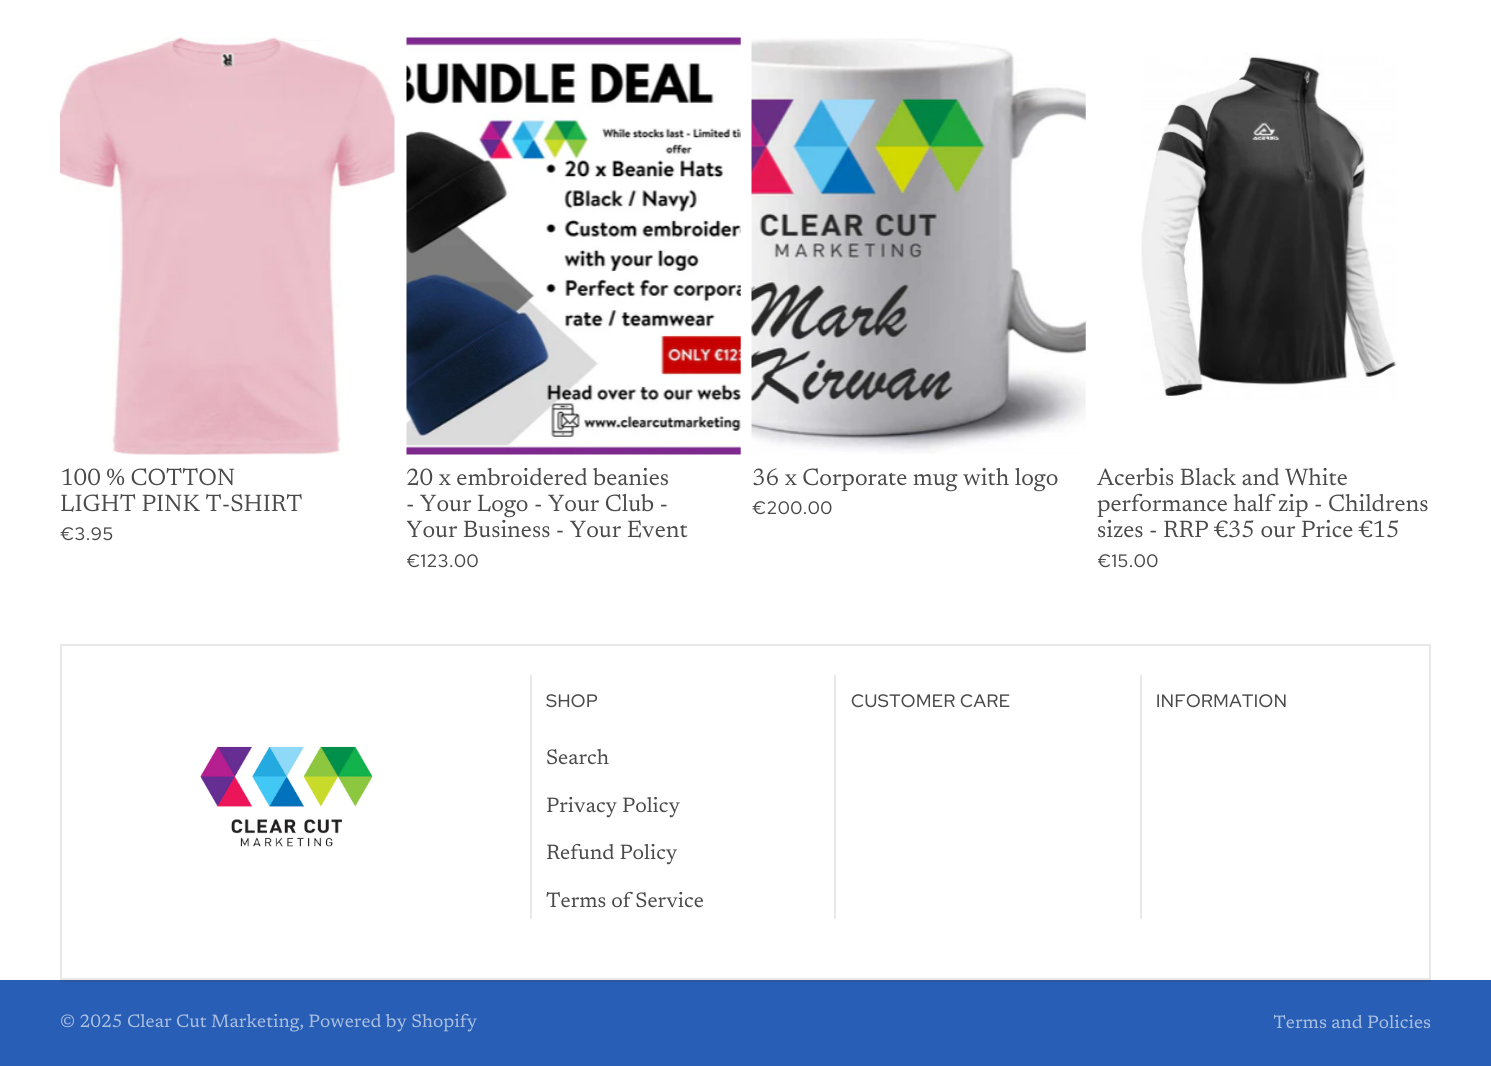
import math
import cairo

surface = cairo.ImageSurface(cairo.FORMAT_RGB24, 1491, 1066)
cr = cairo.Context(surface)
options = cairo.FontOptions()
options.set_hint_metrics(cairo.HINT_METRICS_OFF)
options.set_hint_style(cairo.HINT_STYLE_NONE)
cr.set_font_options(options)
cr.set_miter_limit(4)


def rgb(code):
    cr.set_source_rgb(*(v / 255 for v in bytes.fromhex(code[-6:])))


def tracked(x, y, s, letter, word):
    cr.move_to(x, y)
    for ch in s:
        cr.show_text(ch)
        cr.rel_move_to(letter + word * (ch == ' '), 0)


def image(path, x, y, w, h):
    cr.save()
    cr.set_source_surface(cairo.ImageSurface.create_from_png(path), x, y)
    cr.rectangle(x, y, w, h)
    cr.fill()
    cr.restore()


rgb("#ffffff")
cr.paint()
image("img/1.png", 60, 37, 335, 418)
image("img/2.png", 406, 37, 335, 418)
image("img/3.png", 751, 38, 335, 416)
image("img/4.png", 1141, 52, 256, 347)
cr.rectangle(61, 645, 1369, 334)
rgb("#eae8e6")
cr.stroke()
image("img/5.png", 200, 746, 173, 101)
for x, y, w, h, color in [
    (530, 675, 2, 244, "#eae8e6"),
    (834, 675, 2, 244, "#eae8e6"),
    (1140, 675, 2, 244, "#eae8e6"),
    (0, 980, 1491, 86, "#285eb5"),
    (60, 980, 1371, 2, "#2c589f"),
]:
    rgb(color)
    cr.rectangle(x, y, w, h)
    cr.fill()
cr.select_font_face("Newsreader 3")
cr.set_font_size(24)
rgb("#4a4a4a")
cr.move_to(60, 485)
cr.show_text("100 % COTTON")
cr.move_to(60, 511)
cr.show_text("LIGHT PINK T-SHIRT")
cr.select_font_face("Red Hat Display Medium")
cr.set_font_size(18)
tracked(60, 540, "€3.95", 0.5, 0)
cr.select_font_face("Newsreader 3")
cr.set_font_size(24)
cr.move_to(406, 485)
cr.show_text("20 x embroidered beanies")
cr.move_to(406, 511)
cr.show_text("- Your Logo - Your Club -")
cr.save()
cr.rectangle(407, 38, 333, 534)
cr.clip()
cr.move_to(406, 537)
cr.show_text("Your Business - Your Event")
cr.select_font_face("Red Hat Display Medium")
cr.set_font_size(18)
tracked(406, 567, "€123.00", 0.5, 0)
cr.restore()
cr.move_to(752, 485)
cr.show_text("36 x Corporate mug with logo")
cr.select_font_face("Red Hat Display Medium")
cr.set_font_size(18)
tracked(752, 514, "€200.00", 0.5, 0)
cr.select_font_face("Newsreader 3")
cr.set_font_size(24)
for x, y, s in [
    (1097, 485, "Acerbis Black and White"),
    (1097, 511, "performance half zip - Childrens"),
    (1097, 537, "sizes - RRP €35 our Price €15"),
]:
    cr.move_to(x, y)
    cr.show_text(s)
cr.save()
cr.rectangle(1098, 38, 333, 534)
cr.clip()
cr.select_font_face("Red Hat Display Medium")
cr.set_font_size(18)
tracked(1097, 567, "€15.00", 0.5, 0)
cr.restore()
cr.select_font_face("Red Hat Display Medium")
cr.set_font_size(18)
tracked(546, 707, "SHOP", 0.5, 0)
cr.select_font_face("Newsreader")
cr.set_font_size(21)
for x, y, s in [
    (546, 764, "Search"),
    (546, 812, "Privacy Policy"),
    (546, 859, "Refund Policy"),
    (546, 907, "Terms of Service"),
]:
    cr.move_to(x, y)
    cr.show_text(s)
cr.select_font_face("Red Hat Display Medium")
cr.set_font_size(18)
tracked(851, 707, "CUSTOMER CARE", 0.5, 0)
tracked(1156, 707, "INFORMATION", 0.5, 0)
cr.select_font_face("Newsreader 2")
rgb("#a9bfe1")
cr.move_to(60, 1027)
cr.show_text("© 2025 Clear Cut Marketing, Powered by Shopify")
cr.save()
cr.rectangle(1274, 1014, 157, 18)
cr.clip()
cr.move_to(1273, 1028)
cr.show_text("Terms and Policies")
cr.restore()
surface.write_to_png("page.png")
